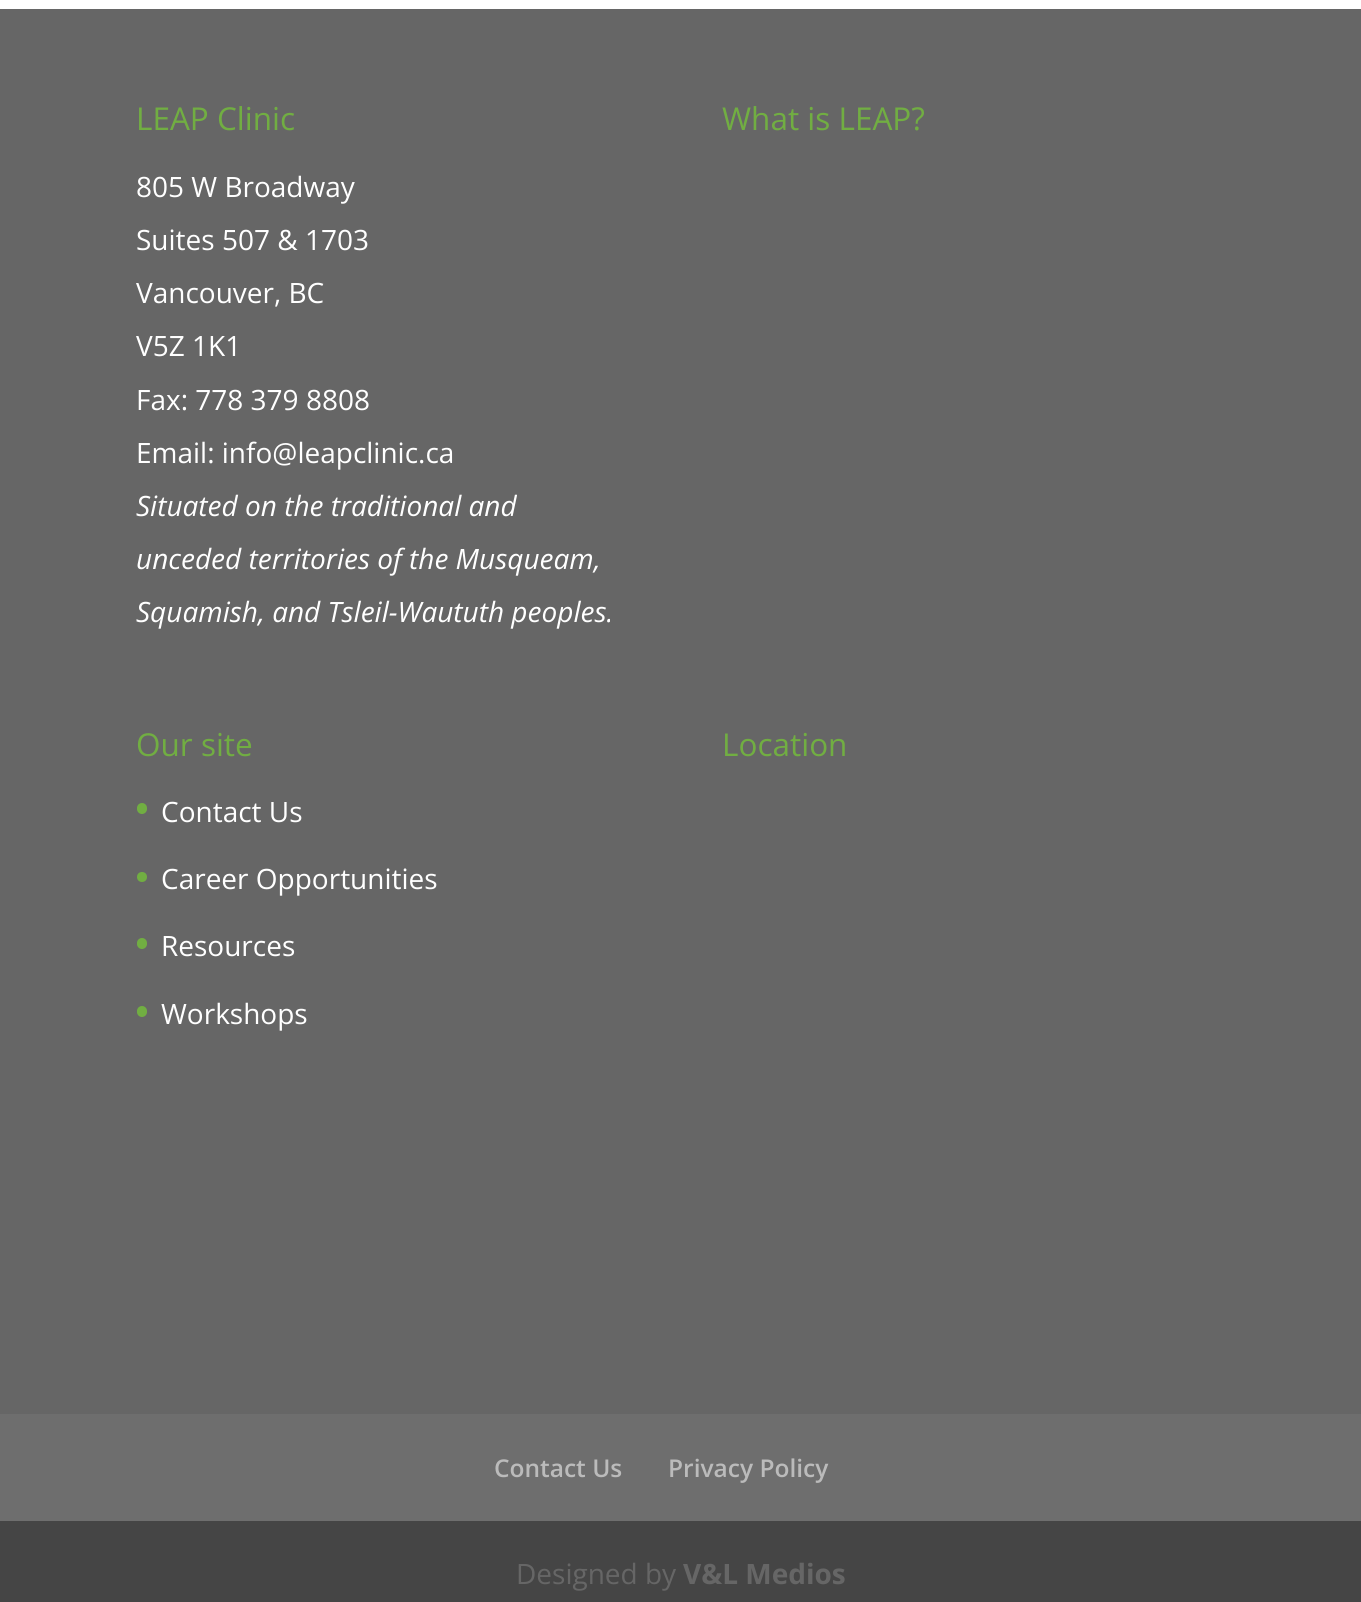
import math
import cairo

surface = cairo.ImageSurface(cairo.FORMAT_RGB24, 1361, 1602)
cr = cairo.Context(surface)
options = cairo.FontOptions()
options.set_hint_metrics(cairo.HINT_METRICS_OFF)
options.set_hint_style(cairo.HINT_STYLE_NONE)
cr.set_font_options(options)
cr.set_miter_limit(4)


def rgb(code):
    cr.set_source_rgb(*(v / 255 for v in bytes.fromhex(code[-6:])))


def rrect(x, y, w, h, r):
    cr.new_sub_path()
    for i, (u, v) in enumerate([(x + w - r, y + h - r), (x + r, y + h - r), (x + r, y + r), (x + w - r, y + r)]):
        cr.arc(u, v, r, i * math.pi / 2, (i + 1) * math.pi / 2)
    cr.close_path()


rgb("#ffffff")
cr.paint()
rgb("#666666")
cr.rectangle(0, 9, 1361, 1405)
cr.fill()
rgb("#71ae42")
rrect(137, 803, 10, 11, 5)
cr.fill()
cr.arc(142, 877, 5, 0, 2 * math.pi)
cr.fill()
rrect(137, 938, 10, 11, 5)
cr.fill()
rrect(137, 1006, 10, 11, 5)
cr.fill()
rgb("#6e6e6e")
cr.rectangle(0, 1414, 1361, 107)
cr.fill()
rgb("#454545")
cr.rectangle(0, 1521, 1361, 81)
cr.fill()
cr.select_font_face("Open Sans")
cr.set_font_size(31.5)
rgb("#71ae42")
cr.move_to(136, 130)
cr.show_text("LEAP Clinic")
cr.set_font_size(28)
rgb("#ffffff")
for x, y, s in [
    (136, 197, "805 W Broadway"),
    (136, 250, "Suites 507 & 1703"),
    (136, 303, "Vancouver, BC"),
    (136, 356, "V5Z 1K1"),
    (136, 410, "Fax: 778 379 8808"),
    (136, 463, "Email: info@leapclinic.ca"),
]:
    cr.move_to(x, y)
    cr.show_text(s)
cr.select_font_face("Open Sans", cairo.FONT_SLANT_ITALIC)
for x, y, s in [
    (136, 516, "Situated on the traditional and"),
    (136, 569, "unceded territories of the Musqueam,"),
    (136, 622, "Squamish, and Tsleil-Waututh peoples."),
]:
    cr.move_to(x, y)
    cr.show_text(s)
cr.select_font_face("Open Sans")
cr.set_font_size(31.5)
rgb("#71ae42")
cr.move_to(722, 130)
cr.show_text("What is LEAP?")
cr.move_to(136, 756)
cr.show_text("Our site")
cr.set_font_size(28)
rgb("#ffffff")
for x, y, s in [
    (161, 822, "Contact Us"),
    (161, 889, "Career Opportunities"),
    (161, 956, "Resources"),
    (161, 1024, "Workshops"),
]:
    cr.move_to(x, y)
    cr.show_text(s)
cr.set_font_size(31.5)
rgb("#71ae42")
cr.move_to(722, 756)
cr.show_text("Location")
cr.select_font_face("Open Sans SemiBold")
cr.set_font_size(24.5)
rgb("#bbbbbb")
cr.move_to(494, 1477)
cr.show_text("Contact Us")
cr.move_to(668, 1477)
cr.show_text("Privacy Policy")
cr.select_font_face("Open Sans")
cr.set_font_size(28)
rgb("#666666")
cr.move_to(516, 1584)
cr.show_text("Designed by")
cr.select_font_face("Open Sans", cairo.FONT_SLANT_NORMAL, cairo.FONT_WEIGHT_BOLD)
cr.move_to(683, 1584)
cr.show_text("V&L Medios")
surface.write_to_png("page.png")
